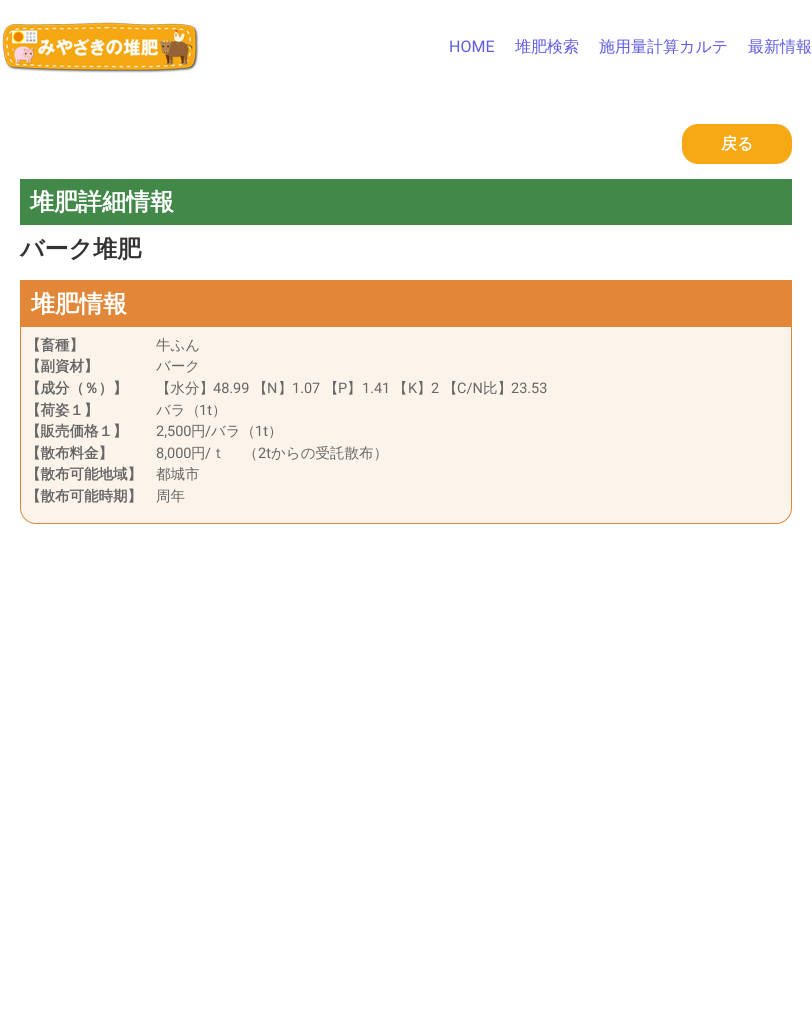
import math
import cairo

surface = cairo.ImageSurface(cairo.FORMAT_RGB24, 812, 1015)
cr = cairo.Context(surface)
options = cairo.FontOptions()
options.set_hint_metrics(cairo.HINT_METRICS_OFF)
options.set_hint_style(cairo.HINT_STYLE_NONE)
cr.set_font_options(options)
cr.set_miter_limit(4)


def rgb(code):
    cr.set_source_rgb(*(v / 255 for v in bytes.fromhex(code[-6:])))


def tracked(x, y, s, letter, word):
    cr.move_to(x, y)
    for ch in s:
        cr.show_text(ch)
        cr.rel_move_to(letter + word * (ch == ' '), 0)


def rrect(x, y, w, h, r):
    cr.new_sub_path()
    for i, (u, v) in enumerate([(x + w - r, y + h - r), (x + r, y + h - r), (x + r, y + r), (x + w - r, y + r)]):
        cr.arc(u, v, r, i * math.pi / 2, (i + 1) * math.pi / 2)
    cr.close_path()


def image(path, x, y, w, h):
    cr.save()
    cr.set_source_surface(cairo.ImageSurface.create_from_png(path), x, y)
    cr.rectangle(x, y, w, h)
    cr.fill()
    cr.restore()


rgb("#ffffff")
cr.paint()
image("img/1.png", 2, 22, 197, 51)
rgb("#f6a915")
rrect(682, 124, 110, 40, 16)
cr.fill()
rgb("#428849")
cr.rectangle(20, 179, 772, 46)
cr.fill()
rgb("#fcf4ea")
cr.new_path()
cr.move_to(20.5, 280.5)
cr.line_to(791.5, 280.5)
cr.line_to(791.5, 508)
cr.curve_to(791.5, 516.5, 784.5, 523.5, 776, 523.5)
cr.line_to(36, 523.5)
cr.curve_to(27.5, 523.5, 20.5, 516.5, 20.5, 508)
cr.close_path()
cr.fill_preserve()
rgb("#e28738")
cr.set_line_width(1)
cr.stroke()
cr.rectangle(21, 281, 770, 46)
cr.fill()
cr.select_font_face("Roboto")
cr.set_font_size(16)
rgb("#605be5")
cr.move_to(449, 52)
cr.show_text("HOME")
cr.select_font_face("WenQuanYi Zen Hei Medium")
for x, y, s in [
    (515, 52, "堆肥検索"),
    (599, 52, "施用量計算カルテ"),
    (748, 52, "最新情報"),
]:
    cr.move_to(x, y)
    cr.show_text(s)
cr.select_font_face("WenQuanYi Zen Hei", cairo.FONT_SLANT_NORMAL, cairo.FONT_WEIGHT_BOLD)
rgb("#ffffff")
cr.move_to(721, 149)
cr.show_text("戻る")
cr.set_font_size(24)
cr.move_to(30, 210)
cr.show_text("堆肥詳細情報")
rgb("#333333")
cr.move_to(20, 257)
cr.show_text("バーク堆肥")
rgb("#ffffff")
cr.move_to(31, 312)
cr.show_text("堆肥情報")
cr.set_font_size(14.5)
rgb("#666666")
cr.move_to(26, 350)
cr.show_text("【畜種】")
cr.select_font_face("WenQuanYi Zen Hei Medium")
cr.move_to(156, 350)
cr.show_text("牛ふん")
cr.select_font_face("WenQuanYi Zen Hei", cairo.FONT_SLANT_NORMAL, cairo.FONT_WEIGHT_BOLD)
cr.move_to(26, 371)
cr.show_text("【副資材】")
cr.select_font_face("WenQuanYi Zen Hei Medium")
cr.move_to(156, 371)
cr.show_text("バーク")
cr.select_font_face("WenQuanYi Zen Hei", cairo.FONT_SLANT_NORMAL, cairo.FONT_WEIGHT_BOLD)
cr.move_to(26, 393)
cr.show_text("【成分（％）】")
cr.select_font_face("WenQuanYi Zen Hei Medium")
cr.move_to(156, 393)
cr.show_text("【水分】")
cr.select_font_face("Roboto")
cr.move_to(213, 393)
cr.show_text("48.99")
cr.select_font_face("WenQuanYi Zen Hei Medium")
cr.move_to(253, 393)
cr.show_text("【")
cr.select_font_face("Roboto")
cr.move_to(267, 393)
cr.show_text("N")
cr.select_font_face("WenQuanYi Zen Hei Medium")
cr.move_to(278, 393)
cr.show_text("】")
cr.select_font_face("Roboto")
cr.move_to(292, 393)
cr.show_text("1.07")
cr.select_font_face("WenQuanYi Zen Hei Medium")
cr.move_to(324, 393)
cr.show_text("【")
cr.select_font_face("Roboto")
cr.move_to(338, 393)
cr.show_text("P")
cr.select_font_face("WenQuanYi Zen Hei Medium")
cr.move_to(347, 393)
cr.show_text("】")
cr.select_font_face("Roboto")
cr.move_to(362, 393)
cr.show_text("1.41")
cr.select_font_face("WenQuanYi Zen Hei Medium")
cr.move_to(393, 393)
cr.show_text("【")
cr.select_font_face("Roboto")
cr.move_to(408, 393)
cr.show_text("K")
cr.select_font_face("WenQuanYi Zen Hei Medium")
cr.move_to(417, 393)
cr.show_text("】")
cr.select_font_face("Roboto")
cr.move_to(431, 393)
cr.show_text("2")
cr.select_font_face("WenQuanYi Zen Hei Medium")
cr.move_to(443, 393)
cr.show_text("【")
cr.select_font_face("Roboto")
cr.move_to(457, 393)
cr.show_text("C/N")
cr.select_font_face("WenQuanYi Zen Hei Medium")
cr.move_to(483, 393)
cr.show_text("比】")
cr.select_font_face("Roboto")
cr.move_to(511, 393)
cr.show_text("23.53")
cr.select_font_face("WenQuanYi Zen Hei", cairo.FONT_SLANT_NORMAL, cairo.FONT_WEIGHT_BOLD)
cr.move_to(26, 415)
cr.show_text("【荷姿１】")
cr.select_font_face("WenQuanYi Zen Hei Medium")
cr.move_to(156, 415)
cr.show_text("バラ（")
cr.select_font_face("Roboto")
cr.move_to(199, 415)
cr.show_text("1t")
cr.select_font_face("WenQuanYi Zen Hei Medium")
cr.move_to(212, 415)
cr.show_text("）")
cr.select_font_face("WenQuanYi Zen Hei", cairo.FONT_SLANT_NORMAL, cairo.FONT_WEIGHT_BOLD)
cr.move_to(26, 436)
cr.show_text("【販売価格１】")
cr.select_font_face("Roboto")
cr.move_to(156, 436)
cr.show_text("2,500")
cr.select_font_face("WenQuanYi Zen Hei Medium")
cr.move_to(191, 436)
cr.show_text("円")
cr.select_font_face("Roboto")
cr.move_to(205, 436)
cr.show_text("/")
cr.select_font_face("WenQuanYi Zen Hei Medium")
cr.move_to(211, 436)
cr.show_text("バラ（")
cr.select_font_face("Roboto")
cr.move_to(255, 436)
cr.show_text("1t")
cr.select_font_face("WenQuanYi Zen Hei Medium")
cr.move_to(268, 436)
cr.show_text("）")
cr.select_font_face("WenQuanYi Zen Hei", cairo.FONT_SLANT_NORMAL, cairo.FONT_WEIGHT_BOLD)
cr.move_to(26, 458)
cr.show_text("【散布料金】")
cr.select_font_face("Roboto")
cr.move_to(156, 458)
cr.show_text("8,000")
cr.select_font_face("WenQuanYi Zen Hei Medium")
cr.move_to(191, 458)
cr.show_text("円")
cr.select_font_face("Roboto")
cr.move_to(205, 458)
cr.show_text("/")
cr.select_font_face("WenQuanYi Zen Hei Medium")
tracked(211, 458, "ｔ　 （", 0, -1)
cr.select_font_face("Roboto")
cr.move_to(258, 458)
cr.show_text("2t")
cr.select_font_face("WenQuanYi Zen Hei Medium")
cr.move_to(271, 458)
cr.show_text("からの受託散布）")
cr.select_font_face("WenQuanYi Zen Hei", cairo.FONT_SLANT_NORMAL, cairo.FONT_WEIGHT_BOLD)
cr.move_to(26, 479)
cr.show_text("【散布可能地域】")
cr.select_font_face("WenQuanYi Zen Hei Medium")
cr.move_to(156, 479)
cr.show_text("都城市")
cr.select_font_face("WenQuanYi Zen Hei", cairo.FONT_SLANT_NORMAL, cairo.FONT_WEIGHT_BOLD)
cr.move_to(26, 501)
cr.show_text("【散布可能時期】")
cr.select_font_face("WenQuanYi Zen Hei Medium")
cr.move_to(156, 501)
cr.show_text("周年")
surface.write_to_png("page.png")
